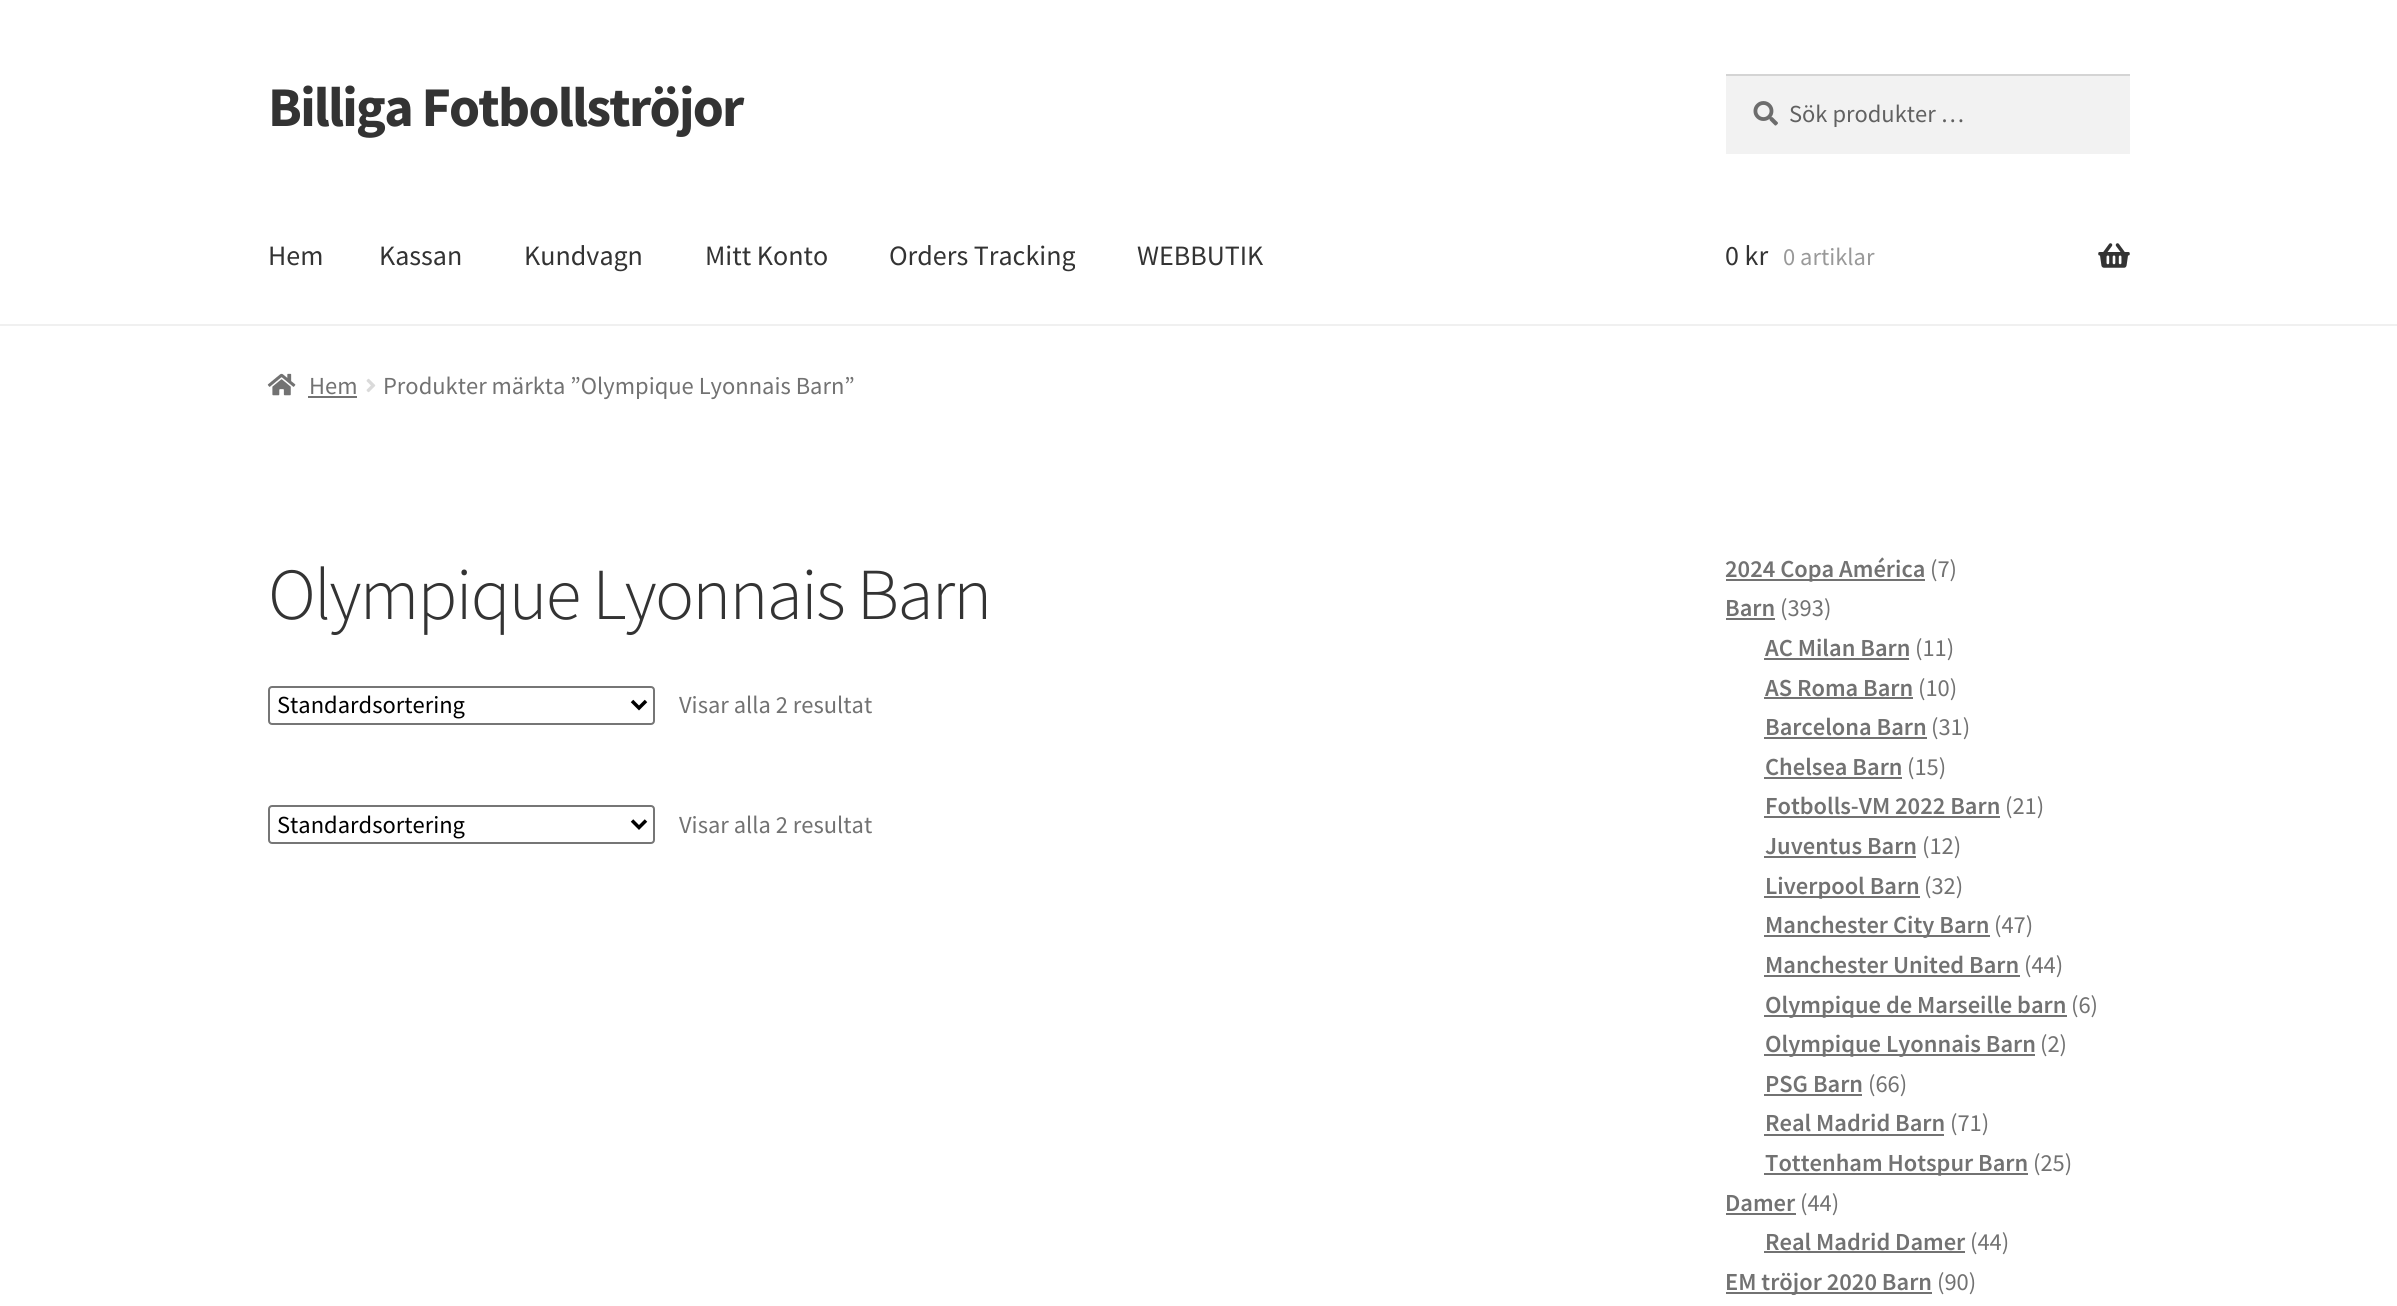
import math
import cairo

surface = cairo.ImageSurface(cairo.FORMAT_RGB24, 2397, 1306)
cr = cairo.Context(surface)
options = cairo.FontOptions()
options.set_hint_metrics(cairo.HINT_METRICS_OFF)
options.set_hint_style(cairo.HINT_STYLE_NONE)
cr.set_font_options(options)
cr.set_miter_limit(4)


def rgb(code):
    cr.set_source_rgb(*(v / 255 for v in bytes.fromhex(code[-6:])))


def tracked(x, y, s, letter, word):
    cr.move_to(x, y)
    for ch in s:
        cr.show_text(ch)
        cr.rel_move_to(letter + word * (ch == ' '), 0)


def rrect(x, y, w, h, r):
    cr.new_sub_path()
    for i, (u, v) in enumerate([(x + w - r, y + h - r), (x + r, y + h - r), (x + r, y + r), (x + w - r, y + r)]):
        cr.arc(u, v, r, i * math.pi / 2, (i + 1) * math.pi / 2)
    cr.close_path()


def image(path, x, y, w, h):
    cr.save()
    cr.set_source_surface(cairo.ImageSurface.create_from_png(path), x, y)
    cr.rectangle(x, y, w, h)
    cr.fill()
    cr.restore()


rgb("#ffffff")
cr.paint()
rgb("#f0f0f0")
cr.rectangle(0, 324, 2397, 2)
cr.fill()
rgb("#f2f2f2")
cr.rectangle(1726, 76, 404, 78)
cr.fill()
image("img/1.png", 1753, 101, 25, 25)
rgb("#d4d4d4")
cr.rectangle(1726, 74, 404, 2)
cr.fill()
image("img/2.png", 2098, 243, 32, 25)
image("img/3.png", 267, 373, 29, 23)
rgb("#727272")
cr.rectangle(308, 396, 49, 2)
cr.fill()
image("img/4.png", 366, 378, 10, 15)
rrect(269, 687, 385, 37, 3)
rgb("#767676")
cr.stroke()
cr.new_path()
cr.move_to(632, 701)
cr.line_to(639, 708)
cr.line_to(646, 701)
rgb("#000000")
cr.set_line_width(3.5)
cr.stroke()
rrect(269, 806, 385, 37, 3)
rgb("#767676")
cr.set_line_width(2)
cr.stroke()
cr.new_path()
cr.move_to(632, 820.5)
cr.line_to(639, 827.5)
cr.line_to(646, 820.5)
rgb("#000000")
cr.set_line_width(3.5)
cr.stroke()
for x, y, w, h, color in [
    (1726, 579, 199, 2, "#727272"),
    (1726, 618, 49, 2, "#727272"),
    (1764, 658, 145, 2, "#727272"),
    (1764, 697, 149, 2, "#727272"),
    (1764, 737, 163, 2, "#727272"),
    (1764, 777, 138, 2, "#727272"),
    (1764, 816, 236, 2, "#727272"),
    (1764, 856, 152, 2, "#727272"),
    (1764, 896, 156, 2, "#727272"),
    (1764, 935, 226, 2, "#727272"),
    (1764, 975, 256, 2, "#727272"),
    (1764, 1015, 303, 2, "#727272"),
    (1764, 1054, 271, 2, "#727272"),
    (1764, 1094, 98, 2, "#727272"),
    (1764, 1134, 180, 2, "#727272"),
    (1764, 1173, 264, 2, "#727272"),
    (1726, 1213, 70, 2, "#727272"),
    (1764, 1251, 201, 2, "#727272"),
    (1726, 1292, 206, 2, "#727272"),
]:
    rgb(color)
    cr.rectangle(x, y, w, h)
    cr.fill()
cr.select_font_face("Source Sans Pro", cairo.FONT_SLANT_NORMAL, cairo.FONT_WEIGHT_BOLD)
cr.set_font_size(56)
rgb("#333333")
tracked(268, 126, "Billiga Fotbollströjor", -1.75, 0)
cr.select_font_face("Source Sans Pro")
cr.set_font_size(24.5)
rgb("#616161")
cr.move_to(1789, 122)
cr.show_text("Sök produkter …")
cr.set_font_size(28)
rgb("#333333")
for x, y, s in [
    (268, 265, "Hem"),
    (379, 265, "Kassan"),
    (524, 265, "Kundvagn"),
    (705, 265, "Mitt Konto"),
    (889, 265, "Orders Tracking"),
    (1137, 265, "WEBBUTIK"),
    (1725, 265, "0 kr"),
]:
    cr.move_to(x, y)
    cr.show_text(s)
cr.set_font_size(24.5)
rgb("#999999")
cr.move_to(1783, 265)
cr.show_text("0 artiklar")
rgb("#727272")
cr.move_to(309, 394)
cr.show_text("Hem")
cr.move_to(383, 394)
cr.show_text("Produkter märkta ”Olympique Lyonnais Barn”")
cr.select_font_face("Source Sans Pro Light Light")
cr.set_font_size(73.25)
rgb("#333333")
tracked(268, 619, "Olympique Lyonnais Barn", -1.75, 0)
cr.select_font_face("Source Sans Pro")
cr.set_font_size(24.5)
rgb("#000000")
cr.move_to(277, 713)
cr.show_text("Standardsortering")
rgb("#727272")
cr.move_to(679, 713)
cr.show_text("Visar alla 2 resultat")
rgb("#000000")
cr.move_to(277, 833)
cr.show_text("Standardsortering")
rgb("#727272")
cr.move_to(679, 833)
cr.show_text("Visar alla 2 resultat")
cr.select_font_face("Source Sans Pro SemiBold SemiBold")
cr.move_to(1725, 577)
cr.show_text("2024 Copa América")
cr.select_font_face("Source Sans Pro")
cr.move_to(1930, 577)
cr.show_text("(7)")
cr.select_font_face("Source Sans Pro SemiBold SemiBold")
cr.move_to(1725, 616)
cr.show_text("Barn")
cr.select_font_face("Source Sans Pro")
cr.move_to(1780, 616)
cr.show_text("(393)")
cr.select_font_face("Source Sans Pro SemiBold SemiBold")
cr.move_to(1765, 656)
cr.show_text("AC Milan Barn")
cr.select_font_face("Source Sans Pro")
cr.move_to(1915, 656)
cr.show_text("(11)")
cr.select_font_face("Source Sans Pro SemiBold SemiBold")
cr.move_to(1765, 696)
cr.show_text("AS Roma Barn")
cr.select_font_face("Source Sans Pro")
cr.move_to(1918, 696)
cr.show_text("(10)")
cr.select_font_face("Source Sans Pro SemiBold SemiBold")
cr.move_to(1765, 735)
cr.show_text("Barcelona Barn")
cr.select_font_face("Source Sans Pro")
cr.move_to(1931, 735)
cr.show_text("(31)")
cr.select_font_face("Source Sans Pro SemiBold SemiBold")
cr.move_to(1765, 775)
cr.show_text("Chelsea Barn")
cr.select_font_face("Source Sans Pro")
cr.move_to(1907, 775)
cr.show_text("(15)")
cr.select_font_face("Source Sans Pro SemiBold SemiBold")
cr.move_to(1765, 814)
cr.show_text("Fotbolls-VM 2022 Barn")
cr.select_font_face("Source Sans Pro")
cr.move_to(2005, 814)
cr.show_text("(21)")
cr.select_font_face("Source Sans Pro SemiBold SemiBold")
cr.move_to(1765, 854)
cr.show_text("Juventus Barn")
cr.select_font_face("Source Sans Pro")
cr.move_to(1922, 854)
cr.show_text("(12)")
cr.select_font_face("Source Sans Pro SemiBold SemiBold")
cr.move_to(1765, 894)
cr.show_text("Liverpool Barn")
cr.select_font_face("Source Sans Pro")
cr.move_to(1924, 894)
cr.show_text("(32)")
cr.select_font_face("Source Sans Pro SemiBold SemiBold")
cr.move_to(1765, 933)
cr.show_text("Manchester City Barn")
cr.select_font_face("Source Sans Pro")
cr.move_to(1994, 933)
cr.show_text("(47)")
cr.select_font_face("Source Sans Pro SemiBold SemiBold")
cr.move_to(1765, 973)
cr.show_text("Manchester United Barn")
cr.select_font_face("Source Sans Pro")
cr.move_to(2024, 973)
cr.show_text("(44)")
cr.select_font_face("Source Sans Pro SemiBold SemiBold")
cr.move_to(1765, 1013)
cr.show_text("Olympique de Marseille barn")
cr.select_font_face("Source Sans Pro")
cr.move_to(2071, 1013)
cr.show_text("(6)")
cr.select_font_face("Source Sans Pro SemiBold SemiBold")
cr.move_to(1765, 1052)
cr.show_text("Olympique Lyonnais Barn")
cr.select_font_face("Source Sans Pro")
cr.move_to(2040, 1052)
cr.show_text("(2)")
cr.select_font_face("Source Sans Pro SemiBold SemiBold")
cr.move_to(1765, 1092)
cr.show_text("PSG Barn")
cr.select_font_face("Source Sans Pro")
cr.move_to(1868, 1092)
cr.show_text("(66)")
cr.select_font_face("Source Sans Pro SemiBold SemiBold")
cr.move_to(1765, 1131)
cr.show_text("Real Madrid Barn")
cr.select_font_face("Source Sans Pro")
cr.move_to(1950, 1131)
cr.show_text("(71)")
cr.select_font_face("Source Sans Pro SemiBold SemiBold")
cr.move_to(1765, 1171)
cr.show_text("Tottenham Hotspur Barn")
cr.select_font_face("Source Sans Pro")
cr.move_to(2033, 1171)
cr.show_text("(25)")
cr.select_font_face("Source Sans Pro SemiBold SemiBold")
cr.move_to(1725, 1211)
cr.show_text("Damer")
cr.select_font_face("Source Sans Pro")
cr.move_to(1800, 1211)
cr.show_text("(44)")
cr.select_font_face("Source Sans Pro SemiBold SemiBold")
cr.move_to(1765, 1250)
cr.show_text("Real Madrid Damer")
cr.select_font_face("Source Sans Pro")
cr.move_to(1970, 1250)
cr.show_text("(44)")
cr.select_font_face("Source Sans Pro SemiBold SemiBold")
cr.move_to(1725, 1290)
cr.show_text("EM tröjor 2020 Barn")
cr.select_font_face("Source Sans Pro")
cr.move_to(1937, 1290)
cr.show_text("(90)")
surface.write_to_png("page.png")
